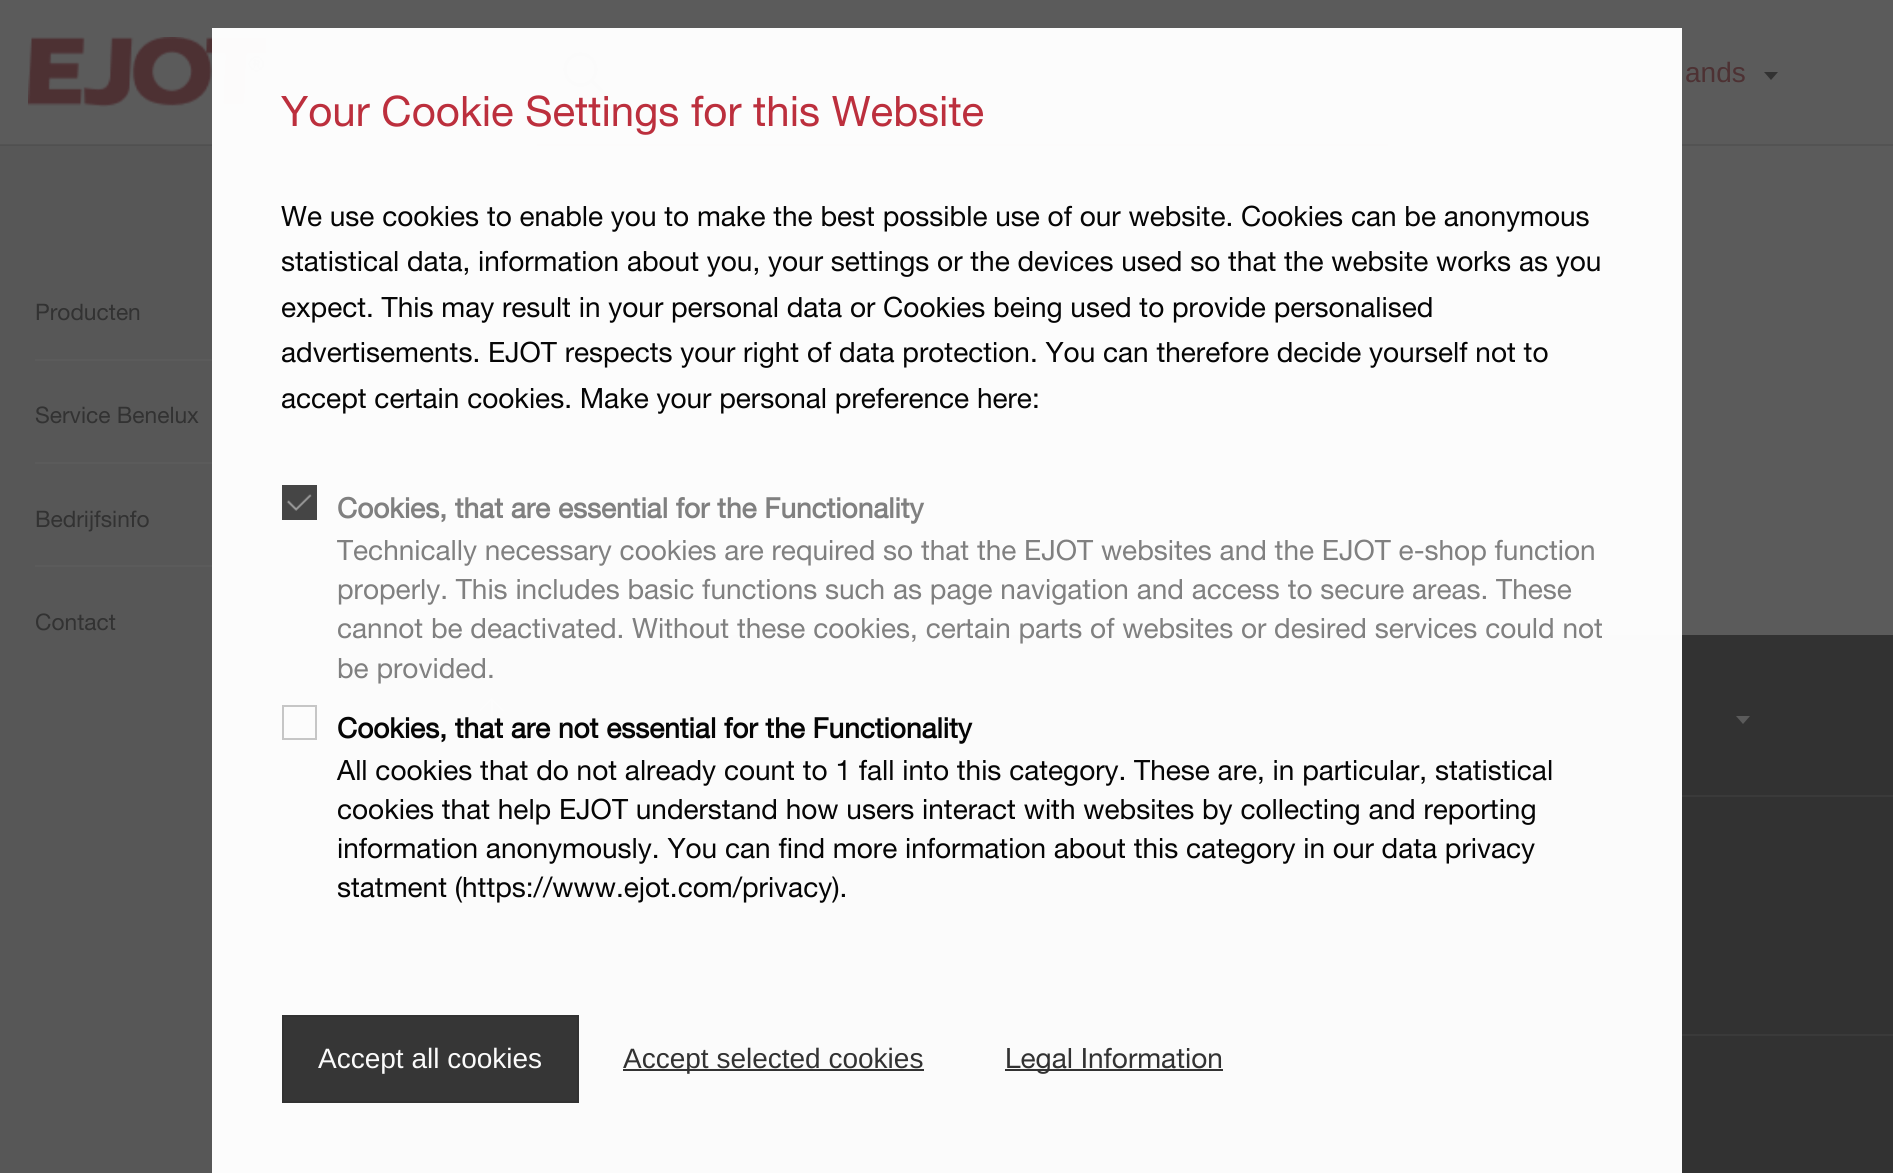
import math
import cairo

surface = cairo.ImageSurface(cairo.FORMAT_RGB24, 1893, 1173)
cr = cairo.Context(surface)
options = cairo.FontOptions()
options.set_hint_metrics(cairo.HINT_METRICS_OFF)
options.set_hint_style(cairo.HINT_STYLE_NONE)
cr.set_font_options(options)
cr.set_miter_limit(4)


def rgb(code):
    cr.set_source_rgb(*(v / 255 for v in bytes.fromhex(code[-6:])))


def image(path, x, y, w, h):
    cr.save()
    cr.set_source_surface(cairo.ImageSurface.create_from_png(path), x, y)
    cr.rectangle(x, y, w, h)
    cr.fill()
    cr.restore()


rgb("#5b5b5b")
cr.paint()
rgb("#535353")
cr.rectangle(350, 145, 1543, 1)
cr.fill()
cr.rectangle(0, 144, 1893, 1)
cr.fill()
image("img/1.png", 28, 37, 238, 70)
image("img/2.png", 563, 51, 45, 46)
rgb("#4d3133")
cr.rectangle(537, 144, 851, 2)
cr.fill()
rgb("#323232")
cr.new_path()
cr.move_to(1771, 80)
cr.line_to(1764, 72)
cr.line_to(1778, 72)
cr.close_path()
cr.fill()
for x, y, w, h, color in [
    (0, 146, 350, 1027, "#575757"),
    (0, 145, 350, 1, "#505050"),
    (35, 359, 280, 2, "#5b5b5b"),
    (35, 462, 280, 2, "#5b5b5b"),
    (35, 565, 280, 2, "#5b5b5b"),
    (350, 635, 1543, 160, "#323232"),
]:
    rgb(color)
    cr.rectangle(x, y, w, h)
    cr.fill()
image("img/3.png", 480, 697, 24, 36)
rgb("#5b5b5b")
cr.new_path()
cr.move_to(1743, 724)
cr.line_to(1736, 716)
cr.line_to(1750, 716)
cr.close_path()
cr.fill()
rgb("#323232")
cr.rectangle(350, 797, 1543, 237)
cr.fill()
rgb("#3a3a3a")
cr.rectangle(350, 795, 1543, 2)
cr.fill()
rgb("#323232")
cr.rectangle(350, 1036, 1543, 137)
cr.fill()
rgb("#3a3a3a")
cr.rectangle(579, 1034, 1314, 2)
cr.fill()
cr.set_source_rgba(1, 1, 1, 0.98)
cr.rectangle(212, 28, 1470, 1145)
cr.fill()
rgb("#454545")
cr.rectangle(282, 485, 35, 35)
cr.fill()
image("img/4.png", 286, 494, 26, 17)
cr.rectangle(283, 706, 33, 33)
rgb("#c6c6c6")
cr.stroke()
rgb("#363636")
cr.rectangle(283, 1016, 295, 86)
cr.fill_preserve()
rgb("#323232")
cr.stroke()
cr.rectangle(623, 1069, 301, 2)
cr.fill()
cr.rectangle(1005, 1069, 218, 2)
cr.fill()
cr.select_font_face("Liberation Sans")
cr.set_font_size(28)
rgb("#4d3133")
cr.move_to(1685, 82)
cr.show_text("ands")
cr.select_font_face("Helvetica Neue")
cr.set_font_size(22.75)
rgb("#323232")
for x, y, s in [
    (35, 320, "Producten"),
    (35, 423, "Service Benelux"),
    (35, 527, "Bedrijfsinfo"),
    (35, 630, "Contact"),
]:
    cr.move_to(x, y)
    cr.show_text(s)
cr.set_font_size(42)
rgb("#bc2f3d")
cr.move_to(281, 126)
cr.show_text("Your Cookie Settings for this Website")
cr.set_font_size(28)
rgb("#050505")
for x, y, s in [
    (281, 226, "We use cookies to enable you to make the best possible use of our website. Cookies can be anonymous"),
    (281, 271, "statistical data, information about you, your settings or the devices used so that the website works as you"),
    (281, 317, "expect. This may result in your personal data or Cookies being used to provide personalised"),
    (281, 362, "advertisements. EJOT respects your right of data protection. You can therefore decide yourself not to"),
    (281, 408, "accept certain cookies. Make your personal preference here:"),
]:
    cr.move_to(x, y)
    cr.show_text(s)
cr.select_font_face("Helvetica Neue", cairo.FONT_SLANT_NORMAL, cairo.FONT_WEIGHT_BOLD)
rgb("#808080")
cr.move_to(337, 518)
cr.show_text("Cookies, that are essential for the Functionality")
cr.select_font_face("Helvetica Neue")
for x, y, s in [
    (337, 560, "Technically necessary cookies are required so that the EJOT websites and the EJOT e-shop function"),
    (337, 599, "properly. This includes basic functions such as page navigation and access to secure areas. These"),
    (337, 638, "cannot be deactivated. Without these cookies, certain parts of websites or desired services could not"),
    (337, 678, "be provided."),
]:
    cr.move_to(x, y)
    cr.show_text(s)
cr.select_font_face("Helvetica Neue", cairo.FONT_SLANT_NORMAL, cairo.FONT_WEIGHT_BOLD)
rgb("#050505")
cr.move_to(337, 738)
cr.show_text("Cookies, that are not essential for the Functionality")
cr.select_font_face("Helvetica Neue")
for x, y, s in [
    (337, 780, "All cookies that do not already count to 1 fall into this category. These are, in particular, statistical"),
    (337, 819, "cookies that help EJOT understand how users interact with websites by collecting and reporting"),
    (337, 858, "information anonymously. You can find more information about this category in our data privacy"),
    (337, 897, "statment (https://www.ejot.com/privacy)."),
]:
    cr.move_to(x, y)
    cr.show_text(s)
cr.select_font_face("Liberation Sans")
rgb("#fbfbfb")
cr.move_to(318, 1068)
cr.show_text("Accept all cookies")
rgb("#323232")
cr.move_to(623, 1068)
cr.show_text("Accept selected cookies")
cr.select_font_face("Helvetica Neue")
cr.move_to(1005, 1068)
cr.show_text("Legal Information")
surface.write_to_png("page.png")
